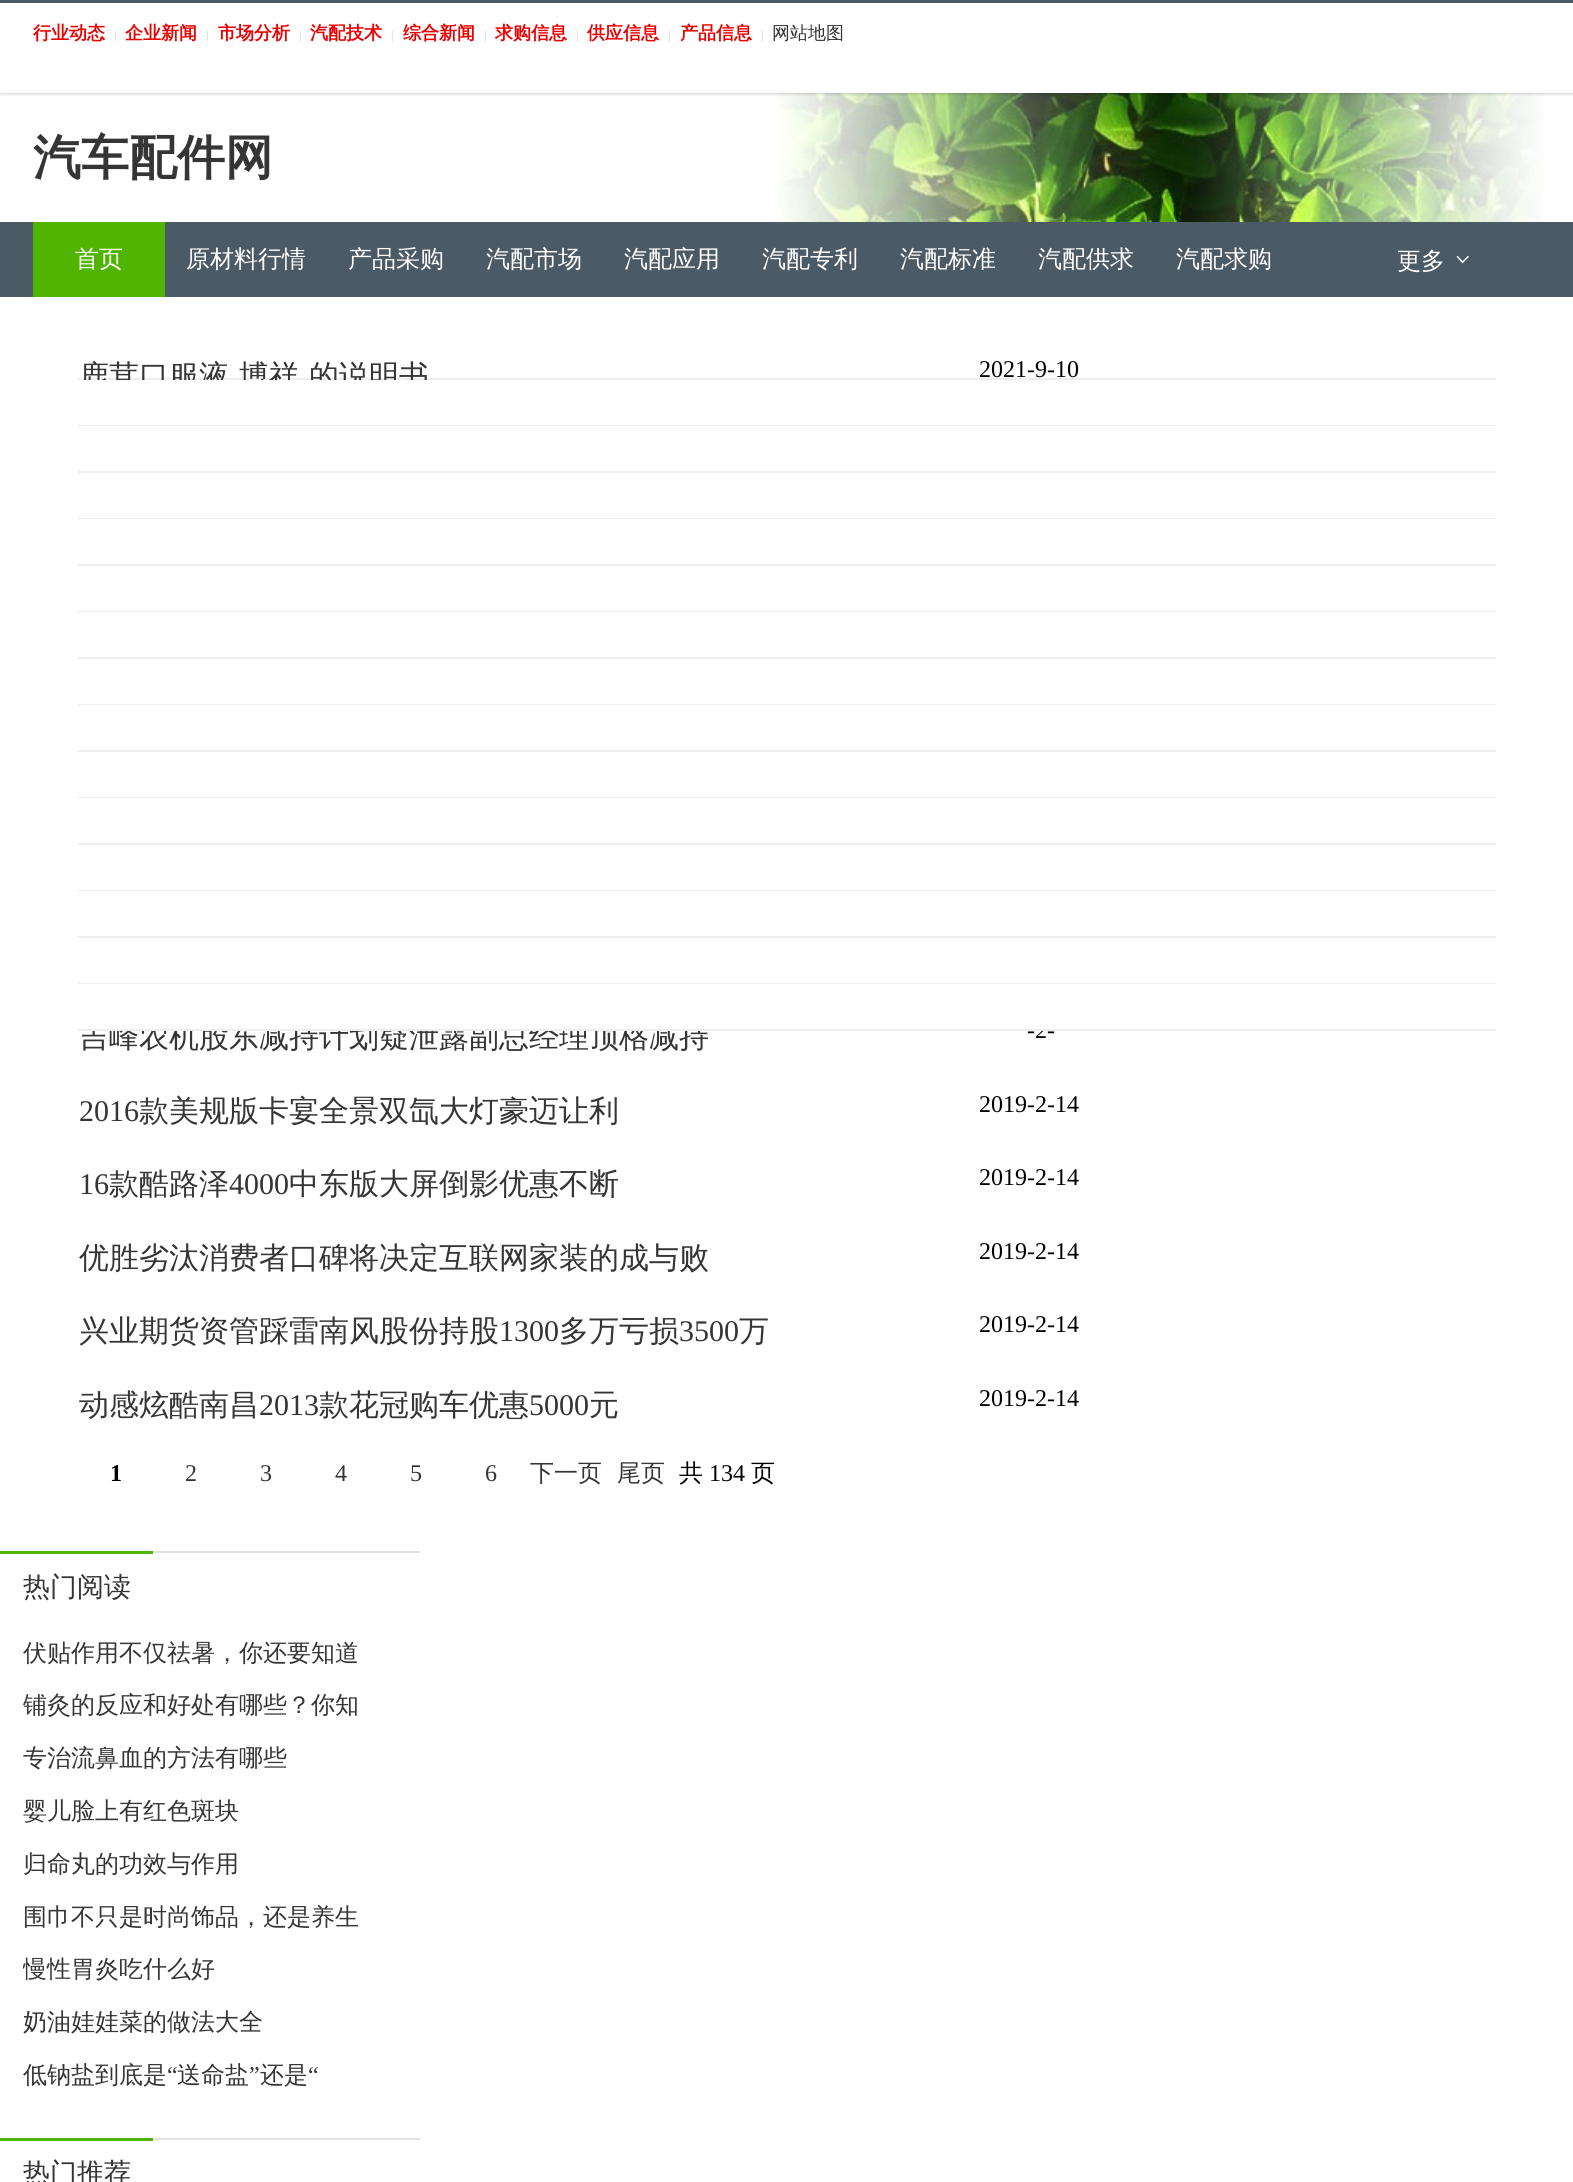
import math
import cairo

surface = cairo.ImageSurface(cairo.FORMAT_RGB24, 1573, 2182)
cr = cairo.Context(surface)
options = cairo.FontOptions()
options.set_hint_metrics(cairo.HINT_METRICS_OFF)
options.set_hint_style(cairo.HINT_STYLE_NONE)
cr.set_font_options(options)
cr.set_miter_limit(4)


def rgb(code):
    cr.set_source_rgb(*(v / 255 for v in bytes.fromhex(code[-6:])))


def rrect(x, y, w, h, r):
    cr.new_sub_path()
    for i, (u, v) in enumerate([(x + w - r, y + h - r), (x + r, y + h - r), (x + r, y + r), (x + w - r, y + r)]):
        cr.arc(u, v, r, i * math.pi / 2, (i + 1) * math.pi / 2)
    cr.close_path()


def soft_shadow(x, y, w, h, r, blur, alpha):
    cr.push_group_with_content(cairo.CONTENT_ALPHA)
    cr.set_operator(cairo.OPERATOR_SOURCE)
    for i in range(15, -16, -2):
        e = blur * i / 6
        if min(w, h) + 2 * e > 0:
            cr.set_source_rgba(0, 0, 0, alpha * math.erfc((i - 1) / 8.5) / 2)
            rrect(x - e, y - e, w + 2 * e, h + 2 * e, max(0, min(r + e + blur * .6, min(w, h) / 2 + e)))
            cr.fill()
    cr.mask(cr.pop_group())


def image(path, x, y, w, h):
    cr.save()
    cr.set_source_surface(cairo.ImageSurface.create_from_png(path), x, y)
    cr.rectangle(x, y, w, h)
    cr.fill()
    cr.restore()


rgb("#ffffff")
cr.paint()
image("img/1.png", 775, 93, 769, 129)
cr.save()
cr.rectangle(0, 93, 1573, 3)
cr.clip()
rgb("#000000")
soft_shadow(0, 0, 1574, 93, 0, 2, 0.3)
cr.restore()
for x, y, w, h, color in [
    (0, 0, 1573, 3, "#4c5a65"),
    (0, 222, 1573, 75, "#4c5a65"),
    (33, 222, 132, 75, "#50b400"),
]:
    rgb(color)
    cr.rectangle(x, y, w, h)
    cr.fill()
image("img/2.png", 1456, 255, 13, 9)
for x, y, w, h, color in [
    (78, 378, 1418, 2, "#eeeeee"),
    (78, 425, 1418, 1, "#eeeeee"),
    (78, 471, 1418, 2, "#eeeeee"),
    (78, 518, 1418, 1, "#eeeeee"),
    (78, 564, 1418, 2, "#eeeeee"),
    (78, 611, 1418, 1, "#eeeeee"),
    (78, 657, 1418, 2, "#eeeeee"),
    (78, 704, 1418, 1, "#eeeeee"),
    (78, 750, 1418, 2, "#eeeeee"),
    (78, 797, 1418, 1, "#eeeeee"),
    (78, 843, 1418, 2, "#eeeeee"),
    (78, 890, 1418, 1, "#eeeeee"),
    (78, 936, 1418, 2, "#eeeeee"),
    (78, 983, 1418, 1, "#eeeeee"),
    (153, 1551, 267, 2, "#e2e2e2"),
    (0, 1551, 153, 3, "#50b400"),
    (153, 2138, 267, 2, "#e2e2e2"),
    (0, 2138, 153, 3, "#50b400"),
]:
    rgb(color)
    cr.rectangle(x, y, w, h)
    cr.fill()
cr.select_font_face("WenQuanYi Zen Hei", cairo.FONT_SLANT_NORMAL, cairo.FONT_WEIGHT_BOLD)
cr.set_font_size(18)
rgb("#eb0000")
cr.move_to(33, 39)
cr.show_text("行业动态")
cr.select_font_face("Liberation Serif")
cr.set_font_size(12)
rgb("#cccccc")
cr.move_to(114, 39)
cr.show_text("|")
cr.select_font_face("WenQuanYi Zen Hei", cairo.FONT_SLANT_NORMAL, cairo.FONT_WEIGHT_BOLD)
cr.set_font_size(18)
rgb("#eb0000")
cr.move_to(125, 39)
cr.show_text("企业新闻")
cr.select_font_face("Liberation Serif")
cr.set_font_size(12)
rgb("#cccccc")
cr.move_to(206, 39)
cr.show_text("|")
cr.select_font_face("WenQuanYi Zen Hei", cairo.FONT_SLANT_NORMAL, cairo.FONT_WEIGHT_BOLD)
cr.set_font_size(18)
rgb("#eb0000")
cr.move_to(218, 39)
cr.show_text("市场分析")
cr.select_font_face("Liberation Serif")
cr.set_font_size(12)
rgb("#cccccc")
cr.move_to(299, 39)
cr.show_text("|")
cr.select_font_face("WenQuanYi Zen Hei", cairo.FONT_SLANT_NORMAL, cairo.FONT_WEIGHT_BOLD)
cr.set_font_size(18)
rgb("#eb0000")
cr.move_to(310, 39)
cr.show_text("汽配技术")
cr.select_font_face("Liberation Serif")
cr.set_font_size(12)
rgb("#cccccc")
cr.move_to(391, 39)
cr.show_text("|")
cr.select_font_face("WenQuanYi Zen Hei", cairo.FONT_SLANT_NORMAL, cairo.FONT_WEIGHT_BOLD)
cr.set_font_size(18)
rgb("#eb0000")
cr.move_to(403, 39)
cr.show_text("综合新闻")
cr.select_font_face("Liberation Serif")
cr.set_font_size(12)
rgb("#cccccc")
cr.move_to(484, 39)
cr.show_text("|")
cr.select_font_face("WenQuanYi Zen Hei", cairo.FONT_SLANT_NORMAL, cairo.FONT_WEIGHT_BOLD)
cr.set_font_size(18)
rgb("#eb0000")
cr.move_to(495, 39)
cr.show_text("求购信息")
cr.select_font_face("Liberation Serif")
cr.set_font_size(12)
rgb("#cccccc")
cr.move_to(576, 39)
cr.show_text("|")
cr.select_font_face("WenQuanYi Zen Hei", cairo.FONT_SLANT_NORMAL, cairo.FONT_WEIGHT_BOLD)
cr.set_font_size(18)
rgb("#eb0000")
cr.move_to(587, 39)
cr.show_text("供应信息")
cr.select_font_face("Liberation Serif")
cr.set_font_size(12)
rgb("#cccccc")
cr.move_to(668, 39)
cr.show_text("|")
cr.select_font_face("WenQuanYi Zen Hei", cairo.FONT_SLANT_NORMAL, cairo.FONT_WEIGHT_BOLD)
cr.set_font_size(18)
rgb("#eb0000")
cr.move_to(680, 39)
cr.show_text("产品信息")
cr.select_font_face("Liberation Serif")
cr.set_font_size(12)
rgb("#cccccc")
cr.move_to(761, 39)
cr.show_text("|")
cr.select_font_face("WenQuanYi Zen Hei Medium")
cr.set_font_size(18)
rgb("#353535")
cr.move_to(772, 39)
cr.show_text("网站地图")
cr.select_font_face("WenQuanYi Zen Hei", cairo.FONT_SLANT_NORMAL, cairo.FONT_WEIGHT_BOLD)
cr.set_font_size(48)
cr.move_to(33, 174)
cr.show_text("汽车配件网")
cr.select_font_face("WenQuanYi Zen Hei Medium")
cr.set_font_size(24)
rgb("#ffffff")
for x, y, s in [
    (75, 267, "首页"),
    (186, 267, "原材料行情"),
    (348, 267, "产品采购"),
    (486, 267, "汽配市场"),
    (624, 267, "汽配应用"),
    (762, 267, "汽配专利"),
    (900, 267, "汽配标准"),
    (1038, 267, "汽配供求"),
    (1176, 267, "汽配求购"),
    (1397, 269, "更多"),
]:
    cr.move_to(x, y)
    cr.show_text(s)
cr.set_font_size(30)
rgb("#353535")
for x, y, s in [
    (79, 386, "鹿茸口服液"),
    (239, 386, "博祥"),
    (309, 386, "的说明书"),
]:
    cr.move_to(x, y)
    cr.show_text(s)
cr.select_font_face("Liberation Serif")
cr.set_font_size(24)
rgb("#000000")
cr.move_to(979, 377)
cr.show_text("2021-9-10")
rgb("#ffffff")
cr.rectangle(79, 380, 348, 11)
cr.fill()
cr.select_font_face("WenQuanYi Zen Hei Medium")
cr.set_font_size(30)
rgb("#353535")
cr.move_to(79, 1047)
cr.show_text("吉峰农机股东减持计划疑泄露副总经理顶格减持")
cr.select_font_face("Liberation Serif")
cr.set_font_size(24)
rgb("#000000")
cr.move_to(1027, 1038)
cr.show_text("-2-")
cr.set_font_size(30)
rgb("#353535")
cr.move_to(79, 1121)
cr.show_text("2016")
cr.select_font_face("WenQuanYi Zen Hei Medium")
cr.move_to(139, 1121)
cr.show_text("款美规版卡宴全景双氙大灯豪迈让利")
cr.select_font_face("Liberation Serif")
cr.set_font_size(24)
rgb("#000000")
cr.move_to(979, 1112)
cr.show_text("2019-2-14")
cr.set_font_size(30)
rgb("#353535")
cr.move_to(79, 1194)
cr.show_text("16")
cr.select_font_face("WenQuanYi Zen Hei Medium")
cr.move_to(109, 1194)
cr.show_text("款酷路泽")
cr.select_font_face("Liberation Serif")
cr.move_to(229, 1194)
cr.show_text("4000")
cr.select_font_face("WenQuanYi Zen Hei Medium")
cr.move_to(289, 1194)
cr.show_text("中东版大屏倒影优惠不断")
cr.select_font_face("Liberation Serif")
cr.set_font_size(24)
rgb("#000000")
cr.move_to(979, 1185)
cr.show_text("2019-2-14")
cr.select_font_face("WenQuanYi Zen Hei Medium")
cr.set_font_size(30)
rgb("#353535")
cr.move_to(79, 1268)
cr.show_text("优胜劣汰消费者口碑将决定互联网家装的成与败")
cr.select_font_face("Liberation Serif")
cr.set_font_size(24)
rgb("#000000")
cr.move_to(979, 1259)
cr.show_text("2019-2-14")
cr.select_font_face("WenQuanYi Zen Hei Medium")
cr.set_font_size(30)
rgb("#353535")
cr.move_to(79, 1341)
cr.show_text("兴业期货资管踩雷南风股份持股")
cr.select_font_face("Liberation Serif")
cr.move_to(499, 1341)
cr.show_text("1300")
cr.select_font_face("WenQuanYi Zen Hei Medium")
cr.move_to(559, 1341)
cr.show_text("多万亏损")
cr.select_font_face("Liberation Serif")
cr.move_to(679, 1341)
cr.show_text("3500")
cr.select_font_face("WenQuanYi Zen Hei Medium")
cr.move_to(739, 1341)
cr.show_text("万")
cr.select_font_face("Liberation Serif")
cr.set_font_size(24)
rgb("#000000")
cr.move_to(979, 1332)
cr.show_text("2019-2-14")
rgb("#ffffff")
cr.rectangle(79, 1021, 967, 8)
cr.fill()
rgb("#eeeeee")
cr.rectangle(78, 1029, 1418, 2)
cr.fill()
cr.select_font_face("WenQuanYi Zen Hei Medium")
cr.set_font_size(30)
rgb("#353535")
cr.move_to(79, 1415)
cr.show_text("动感炫酷南昌")
cr.select_font_face("Liberation Serif")
cr.move_to(259, 1415)
cr.show_text("2013")
cr.select_font_face("WenQuanYi Zen Hei Medium")
cr.move_to(319, 1415)
cr.show_text("款花冠购车优惠")
cr.select_font_face("Liberation Serif")
cr.move_to(529, 1415)
cr.show_text("5000")
cr.select_font_face("WenQuanYi Zen Hei Medium")
cr.move_to(589, 1415)
cr.show_text("元")
cr.select_font_face("Liberation Serif")
cr.set_font_size(24)
rgb("#000000")
cr.move_to(979, 1406)
cr.show_text("2019-2-14")
cr.select_font_face("Liberation Serif", cairo.FONT_SLANT_NORMAL, cairo.FONT_WEIGHT_BOLD)
cr.move_to(110, 1481)
cr.show_text("1")
cr.select_font_face("Liberation Serif")
rgb("#353535")
for x, y, s in [
    (185, 1481, "2"),
    (260, 1481, "3"),
    (335, 1481, "4"),
    (410, 1481, "5"),
    (485, 1481, "6"),
]:
    cr.move_to(x, y)
    cr.show_text(s)
cr.select_font_face("WenQuanYi Zen Hei Medium")
cr.move_to(530, 1481)
cr.show_text("下一页")
cr.move_to(617, 1481)
cr.show_text("尾页")
rgb("#000000")
cr.move_to(679, 1481)
cr.show_text("共")
cr.select_font_face("Liberation Serif")
cr.move_to(709, 1481)
cr.show_text("134")
cr.select_font_face("WenQuanYi Zen Hei Medium")
cr.move_to(751, 1481)
cr.show_text("页")
cr.set_font_size(27)
rgb("#353535")
cr.move_to(23, 1596)
cr.show_text("热门阅读")
cr.set_font_size(24)
for x, y, s in [
    (23, 1661, "伏贴作用不仅祛暑，你还要知道"),
    (23, 1713, "铺灸的反应和好处有哪些？你知"),
    (23, 1766, "专治流鼻血的方法有哪些"),
    (23, 1819, "婴儿脸上有红色斑块"),
    (23, 1872, "归命丸的功效与作用"),
    (23, 1925, "围巾不只是时尚饰品，还是养生"),
]:
    cr.move_to(x, y)
    cr.show_text(s)
cr.save()
cr.rectangle(23, 1943, 337, 52)
cr.clip()
cr.move_to(23, 1977)
cr.show_text("慢性胃炎吃什么好")
cr.restore()
cr.move_to(23, 2030)
cr.show_text("奶油娃娃菜的做法大全")
cr.move_to(23, 2083)
cr.show_text("低钠盐到底是")
cr.select_font_face("Liberation Serif")
cr.move_to(167, 2083)
cr.show_text("“")
cr.select_font_face("WenQuanYi Zen Hei Medium")
cr.move_to(177, 2083)
cr.show_text("送命盐")
cr.select_font_face("Liberation Serif")
cr.move_to(249, 2083)
cr.show_text("”")
cr.select_font_face("WenQuanYi Zen Hei Medium")
cr.move_to(260, 2083)
cr.show_text("还是")
cr.select_font_face("Liberation Serif")
cr.move_to(308, 2083)
cr.show_text("“")
cr.select_font_face("WenQuanYi Zen Hei Medium")
cr.set_font_size(27)
cr.move_to(23, 2182)
cr.show_text("热门推荐")
surface.write_to_png("page.png")
